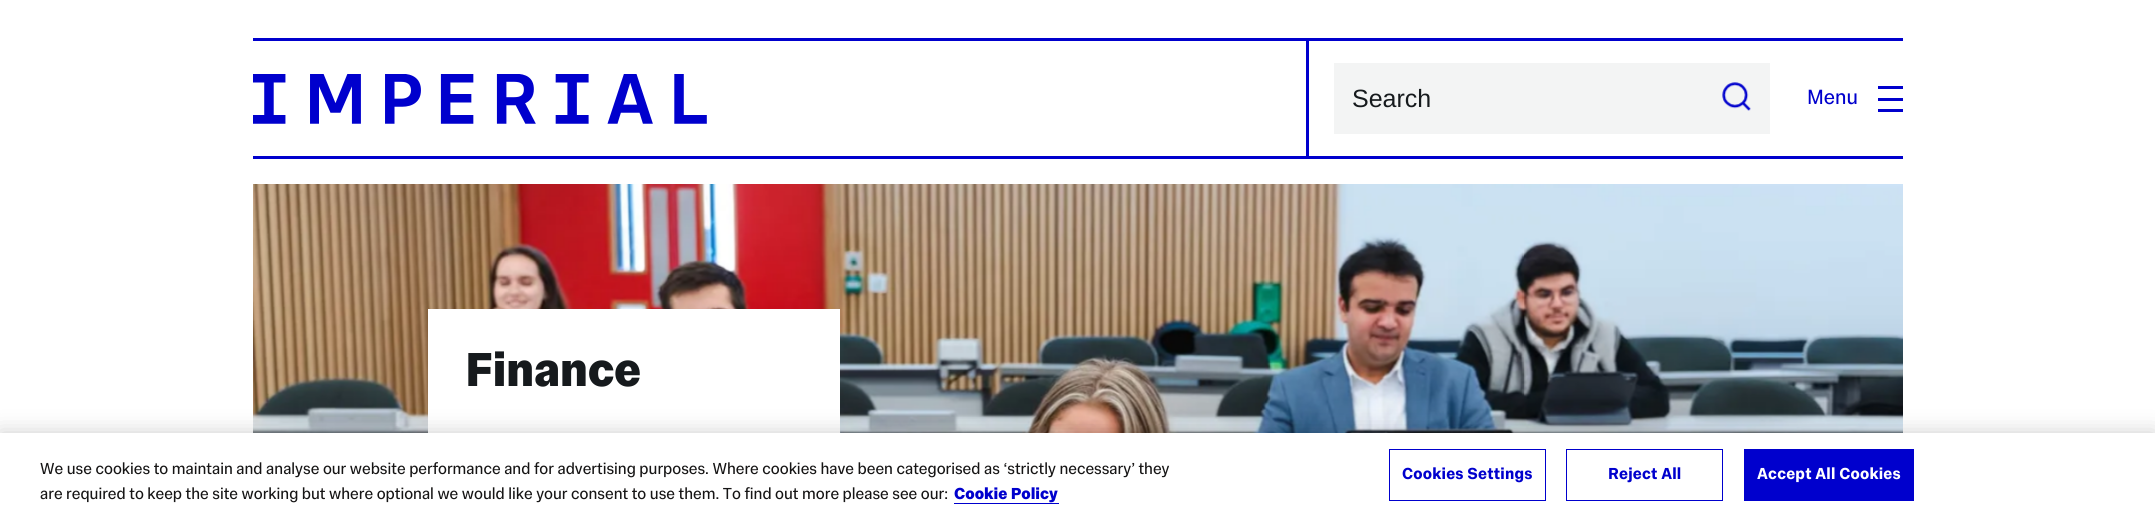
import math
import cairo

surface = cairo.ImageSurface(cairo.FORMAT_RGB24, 2155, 521)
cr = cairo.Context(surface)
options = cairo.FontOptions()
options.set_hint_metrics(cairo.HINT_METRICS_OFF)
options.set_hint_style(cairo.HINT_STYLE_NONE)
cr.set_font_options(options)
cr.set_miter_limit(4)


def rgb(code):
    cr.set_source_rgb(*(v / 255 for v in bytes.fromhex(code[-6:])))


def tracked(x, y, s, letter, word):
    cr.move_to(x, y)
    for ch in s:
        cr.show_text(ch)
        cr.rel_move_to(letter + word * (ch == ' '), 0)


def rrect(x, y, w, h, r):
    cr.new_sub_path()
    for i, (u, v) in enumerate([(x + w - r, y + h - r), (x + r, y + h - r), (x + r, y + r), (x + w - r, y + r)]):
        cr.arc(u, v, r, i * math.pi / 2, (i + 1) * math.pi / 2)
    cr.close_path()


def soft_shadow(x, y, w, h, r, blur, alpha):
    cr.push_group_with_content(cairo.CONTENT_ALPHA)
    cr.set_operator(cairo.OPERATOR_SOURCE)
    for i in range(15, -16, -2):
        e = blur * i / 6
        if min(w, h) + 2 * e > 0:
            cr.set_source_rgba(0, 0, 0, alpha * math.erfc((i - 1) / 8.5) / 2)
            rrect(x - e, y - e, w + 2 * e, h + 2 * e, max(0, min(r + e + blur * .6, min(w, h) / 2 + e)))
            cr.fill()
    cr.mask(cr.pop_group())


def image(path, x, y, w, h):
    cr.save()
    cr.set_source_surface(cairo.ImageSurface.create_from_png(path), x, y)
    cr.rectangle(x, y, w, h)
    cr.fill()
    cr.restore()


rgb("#ffffff")
cr.paint()
rgb("#0000cd")
cr.rectangle(253, 38, 1650, 3)
cr.fill()
image("img/1.png", 253, 74, 454, 50)
cr.rectangle(1306, 38, 3, 121)
cr.fill()
rgb("#f3f4f4")
cr.rectangle(1334, 63, 436, 71)
cr.fill()
image("img/2.png", 1722, 82, 29, 29)
for x, y, w, h, color in [
    (1878, 86, 25, 3, "#0000cd"),
    (1878, 98, 25, 3, "#0000cd"),
    (1878, 109, 25, 3, "#0000cd"),
    (253, 156, 1650, 3, "#0000cd"),
]:
    rgb(color)
    cr.rectangle(x, y, w, h)
    cr.fill()
image("img/3.png", 253, 184, 1650, 249)
rgb("#ffffff")
cr.rectangle(428, 309, 412, 124)
cr.fill()
rgb("#000000")
soft_shadow(0, 433, 2155, 88, 0, 11, 0.2)
rgb("#ffffff")
cr.rectangle(0, 433, 2155, 88)
cr.fill()
rgb("#0000cd")
cr.rectangle(954, 503, 105, 1)
cr.fill()
cr.rectangle(1389.5, 449.5, 156, 51)
cr.set_line_width(1)
cr.stroke()
cr.rectangle(1566.5, 449.5, 156, 51)
cr.stroke()
cr.rectangle(1744, 449, 170, 52)
cr.fill()
cr.select_font_face("Liberation Sans")
cr.set_font_size(25)
rgb("#161a1d")
cr.move_to(1352, 107)
cr.show_text("Search")
cr.select_font_face("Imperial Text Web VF")
cr.set_font_size(21)
rgb("#0000cd")
cr.move_to(1807, 104)
cr.show_text("Menu")
cr.select_font_face("Imperial Text Web VF", cairo.FONT_SLANT_NORMAL, cairo.FONT_WEIGHT_BOLD)
cr.set_font_size(48.5)
rgb("#161a1d")
tracked(465, 386, "Finance", -0.5, 0)
cr.select_font_face("Imperial Text Web VF")
cr.set_font_size(16.25)
rgb("#161515")
cr.move_to(40, 474)
cr.show_text("We use cookies to maintain and analyse our website performance and for advertising purposes. Where cookies have been categorised as ‘strictly necessary’ they")
cr.move_to(40, 499)
cr.show_text("are required to keep the site working but where optional we would like your consent to use them. To find out more please see our:")
cr.select_font_face("Imperial Text Web VF", cairo.FONT_SLANT_NORMAL, cairo.FONT_WEIGHT_BOLD)
rgb("#0000cd")
cr.move_to(954, 499)
cr.show_text("Cookie Policy")
cr.select_font_face("Imperial Text Web VF SemiBold")
tracked(1402, 479, "Cookies Settings", 0.2, 0)
tracked(1608, 479, "Reject All", 0.2, 0)
rgb("#ffffff")
tracked(1757, 479, "Accept All Cookies", 0.2, 0)
surface.write_to_png("page.png")
